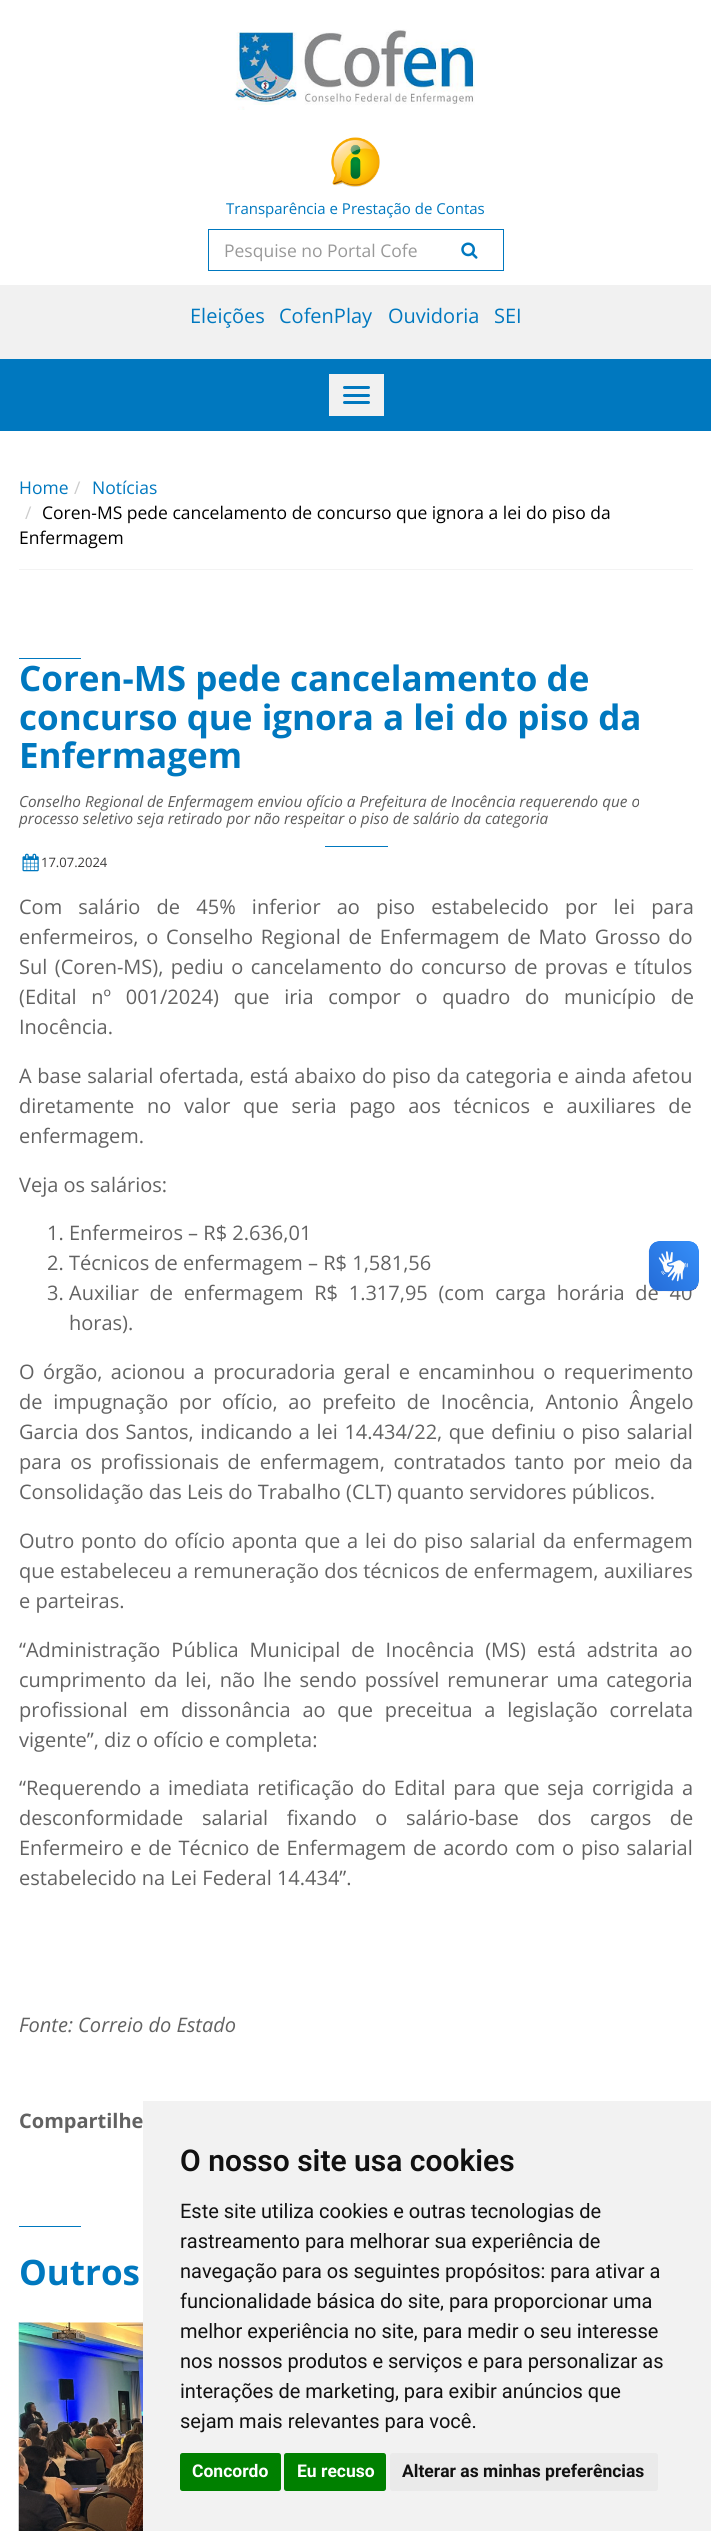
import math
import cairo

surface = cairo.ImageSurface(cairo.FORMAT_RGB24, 711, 2531)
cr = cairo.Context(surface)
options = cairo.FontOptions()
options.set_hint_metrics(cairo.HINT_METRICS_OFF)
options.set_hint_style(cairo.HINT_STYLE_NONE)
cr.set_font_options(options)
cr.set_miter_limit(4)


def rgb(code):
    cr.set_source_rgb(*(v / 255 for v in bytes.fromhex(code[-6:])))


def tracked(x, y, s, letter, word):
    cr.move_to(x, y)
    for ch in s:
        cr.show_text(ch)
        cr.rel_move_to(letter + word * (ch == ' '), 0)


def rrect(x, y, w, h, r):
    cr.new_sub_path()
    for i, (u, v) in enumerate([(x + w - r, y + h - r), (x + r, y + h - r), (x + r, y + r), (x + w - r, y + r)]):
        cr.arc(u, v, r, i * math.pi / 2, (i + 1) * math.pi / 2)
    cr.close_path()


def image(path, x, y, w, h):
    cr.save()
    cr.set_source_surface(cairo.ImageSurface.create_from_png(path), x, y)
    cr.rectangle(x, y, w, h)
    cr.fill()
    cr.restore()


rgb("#ffffff")
cr.paint()
image("img/1.png", 234, 29, 241, 81)
image("img/2.png", 331, 137, 49, 50)
for x, y, w, h, color in [
    (208, 229, 296, 1, "#0078bf"),
    (503, 229, 1, 42, "#0078bf"),
    (208, 270, 296, 1, "#0078bf"),
]:
    rgb(color)
    cr.rectangle(x, y, w, h)
    cr.fill()
image("img/3.png", 461, 242, 17, 17)
for x, y, w, h, color in [
    (208, 229, 1, 42, "#0078bf"),
    (0, 285, 711, 74, "#f1f1f1"),
    (0, 359, 711, 72, "#0078bf"),
    (329, 374, 55, 42, "#f1f1f1"),
]:
    rgb(color)
    cr.rectangle(x, y, w, h)
    cr.fill()
rgb("#0078bf")
rrect(343, 386, 27, 3, 1.5)
cr.fill()
rrect(343, 394, 27, 3, 1.5)
cr.fill()
rrect(343, 401, 27, 3, 1.5)
cr.fill()
for x, y, w, h, color in [
    (19, 569, 674, 1, "#f3f3f3"),
    (19, 658, 62, 1, "#0078bf"),
    (325, 846, 63, 1, "#0078bf"),
]:
    rgb(color)
    cr.rectangle(x, y, w, h)
    cr.fill()
image("img/4.png", 22, 853, 17, 19)
cr.rectangle(19, 2226, 62, 1)
cr.fill()
image("img/7.png", 18, 2322, 125, 209)
rgb("#f2f2f2")
cr.rectangle(143, 2101, 568, 430)
cr.fill()
rgb("#008000")
rrect(180, 2453, 101, 38, 2.5)
cr.fill()
rrect(284, 2453, 102, 38, 2.5)
cr.fill()
rgb("#eaeaea")
rrect(390, 2453, 268, 38, 2.5)
cr.fill()
cr.select_font_face("Open Sans")
cr.set_font_size(15)
rgb("#0078bf")
cr.move_to(226, 214)
cr.show_text("Transparência e Prestação de Contas")
cr.set_font_size(17.5)
rgb("#999999")
cr.move_to(224, 257)
cr.show_text("Pesquise no Portal Cofe")
cr.set_font_size(20)
rgb("#0078bf")
for x, y, s in [
    (190, 323, "Eleições"),
    (279, 323, "CofenPlay"),
    (388, 323, "Ouvidoria"),
    (494, 323, "SEI"),
]:
    cr.move_to(x, y)
    cr.show_text(s)
cr.set_font_size(17.5)
cr.move_to(19, 494)
cr.show_text("Home")
rgb("#cccccc")
cr.move_to(74, 494)
cr.show_text("/")
rgb("#0078bf")
cr.move_to(92, 494)
cr.show_text("Notícias")
rgb("#cccccc")
cr.move_to(25, 519)
cr.show_text("/")
rgb("#000000")
cr.move_to(42, 519)
cr.show_text("Coren-MS pede cancelamento de concurso que ignora a lei do piso da")
cr.move_to(19, 544)
cr.show_text("Enfermagem")
cr.select_font_face("Open Sans", cairo.FONT_SLANT_NORMAL, cairo.FONT_WEIGHT_BOLD)
cr.set_font_size(35)
rgb("#0078bf")
for x, y, s in [
    (19, 691, "Coren-MS pede cancelamento de"),
    (19, 730, "concurso que ignora a lei do piso da"),
    (19, 768, "Enfermagem"),
]:
    cr.move_to(x, y)
    cr.show_text(s)
cr.select_font_face("Open Sans", cairo.FONT_SLANT_ITALIC)
cr.set_font_size(15.3)
rgb("#5b5b5b")
cr.move_to(19, 807)
cr.show_text("Conselho Regional de Enfermagem enviou ofício a Prefeitura de Inocência requerendo que o")
cr.move_to(19, 824)
cr.show_text("processo seletivo seja retirado por não respeitar o piso de salário da categoria")
cr.select_font_face("Open Sans")
cr.set_font_size(13)
rgb("#3a3939")
cr.move_to(41, 867)
cr.show_text("17.07.2024")
cr.set_font_size(20)
rgb("#626262")
tracked(19, 914, "Com salário de 45% inferior ao piso estabelecido por lei para", 0, 11)
tracked(19, 944, "enfermeiros, o Conselho Regional de Enfermagem de Mato Grosso do", 0, 2.6)
tracked(19, 974, "Sul (Coren-MS), pediu o cancelamento do concurso de provas e títulos", 0, 2.25)
tracked(19, 1004, "(Edital nº 001/2024) que iria compor o quadro do município de", 0, 9.5)
cr.move_to(19, 1034)
cr.show_text("Inocência.")
tracked(19, 1083, "A base salarial ofertada, está abaixo do piso da categoria e ainda afetou", 0, 0.5)
tracked(19, 1113, "diretamente no valor que seria pago aos técnicos e auxiliares de", 0, 7.5)
for x, y, s in [
    (19, 1143, "enfermagem."),
    (19, 1192, "Veja os salários:"),
    (47, 1240, "1. Enfermeiros – R$ 2.636,01"),
    (47, 1270, "2. Técnicos de enfermagem – R$ 1,581,56"),
    (47, 1300, "3."),
]:
    cr.move_to(x, y)
    cr.show_text(s)
tracked(69, 1300, "Auxiliar de enfermagem R$ 1.317,95 (com carga horária de 40", 0, 5.5)
cr.move_to(69, 1330)
cr.show_text("horas).")
tracked(19, 1379, "O órgão, acionou a procuradoria geral e encaminhou o requerimento", 0, 3.25)
tracked(19, 1409, "de impugnação por ofício, ao prefeito de Inocência, Antonio Ângelo", 0, 5.5)
tracked(19, 1439, "Garcia dos Santos, indicando a lei 14.434/22, que definiu o piso salarial", 0, 1.4)
tracked(19, 1469, "para os profissionais de enfermagem, contratados tanto por meio da", 0, 3.5)
cr.move_to(19, 1499)
cr.show_text("Consolidação das Leis do Trabalho (CLT) quanto servidores públicos.")
tracked(19, 1548, "Outro ponto do ofício aponta que a lei do piso salarial da enfermagem", 0, 1.6)
cr.move_to(19, 1578)
cr.show_text("que estabeleceu a remuneração dos técnicos de enfermagem, auxiliares")
cr.move_to(19, 1608)
cr.show_text("e parteiras.")
tracked(19, 1657, "“Administração Pública Municipal de Inocência (MS) está adstrita ao", 0, 5.75)
tracked(19, 1687, "cumprimento da lei, não lhe sendo possível remunerar uma categoria", 0, 2.75)
tracked(19, 1717, "profissional em dissonância ao que preceitua a legislação correlata", 0, 6.5)
cr.move_to(19, 1747)
cr.show_text("vigente”, diz o ofício e completa:")
tracked(19, 1795, "“Requerendo a imediata retificação do Edital para que seja corrigida a", 0, 2.6)
tracked(19, 1825, "desconformidade salarial fixando o salário-base dos cargos de", 0, 13.5)
tracked(19, 1855, "Enfermeiro e de Técnico de Enfermagem de acordo com o piso salarial", 0, 1.6)
cr.move_to(19, 1885)
cr.show_text("estabelecido na Lei Federal 14.434”.")
cr.select_font_face("Open Sans", cairo.FONT_SLANT_ITALIC)
cr.move_to(19, 2032)
cr.show_text("Fonte: Correio do Estado")
cr.select_font_face("Open Sans", cairo.FONT_SLANT_NORMAL, cairo.FONT_WEIGHT_BOLD)
cr.move_to(19, 2128)
cr.show_text("Compartilhe")
image("img/5.png", 648, 1241, 51, 51)
image("img/6.png", 649, 1241, 50, 50)
cr.set_font_size(35)
rgb("#0078bf")
cr.move_to(19, 2285)
cr.show_text("Outros")
cr.select_font_face("Roboto SemiBold")
cr.set_font_size(30)
rgb("#111111")
cr.move_to(180, 2171)
cr.show_text("O nosso site usa cookies")
cr.select_font_face("Roboto")
cr.set_font_size(20)
for x, y, s in [
    (180, 2218, "Este site utiliza cookies e outras tecnologias de"),
    (180, 2248, "rastreamento para melhorar sua experiência de"),
    (180, 2278, "navegação para os seguintes propósitos: para ativar a"),
    (180, 2308, "funcionalidade básica do site, para proporcionar uma"),
    (180, 2338, "melhor experiência no site, para medir o seu interesse"),
    (180, 2368, "nos nossos produtos e serviços e para personalizar as"),
    (180, 2398, "interações de marketing, para exibir anúncios que"),
    (180, 2428, "sejam mais relevantes para você."),
]:
    cr.move_to(x, y)
    cr.show_text(s)
cr.select_font_face("Roboto", cairo.FONT_SLANT_NORMAL, cairo.FONT_WEIGHT_BOLD)
cr.set_font_size(17.5)
rgb("#ffffff")
cr.move_to(192, 2477)
cr.show_text("Concordo")
cr.move_to(297, 2477)
cr.show_text("Eu recuso")
rgb("#111111")
cr.move_to(402, 2477)
cr.show_text("Alterar as minhas preferências")
surface.write_to_png("page.png")
